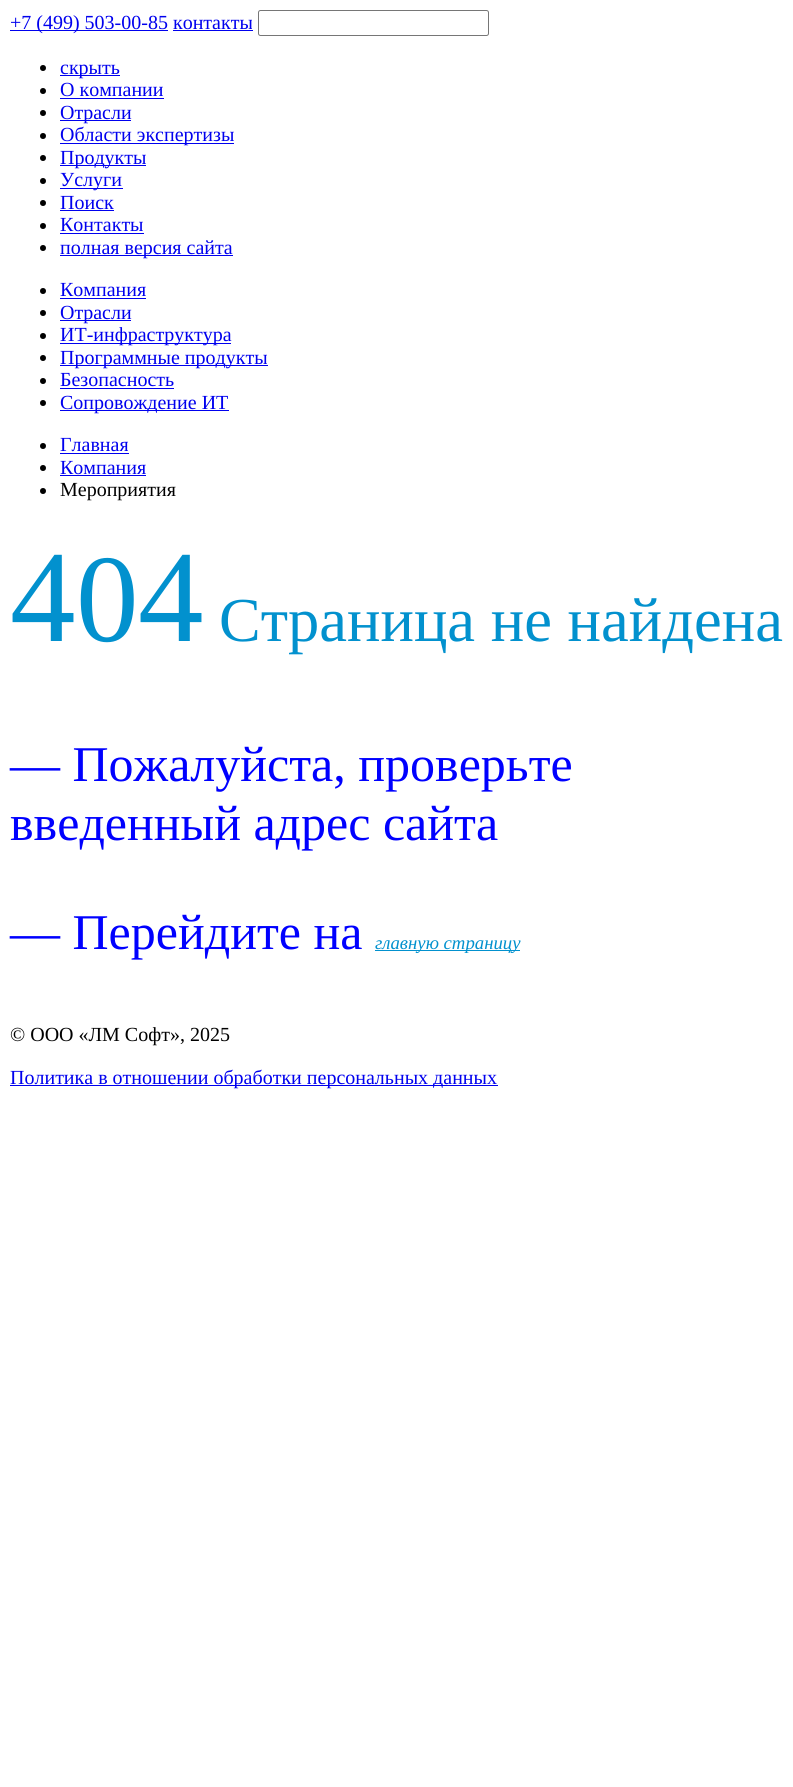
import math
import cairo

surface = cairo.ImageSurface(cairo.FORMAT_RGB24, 793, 1787)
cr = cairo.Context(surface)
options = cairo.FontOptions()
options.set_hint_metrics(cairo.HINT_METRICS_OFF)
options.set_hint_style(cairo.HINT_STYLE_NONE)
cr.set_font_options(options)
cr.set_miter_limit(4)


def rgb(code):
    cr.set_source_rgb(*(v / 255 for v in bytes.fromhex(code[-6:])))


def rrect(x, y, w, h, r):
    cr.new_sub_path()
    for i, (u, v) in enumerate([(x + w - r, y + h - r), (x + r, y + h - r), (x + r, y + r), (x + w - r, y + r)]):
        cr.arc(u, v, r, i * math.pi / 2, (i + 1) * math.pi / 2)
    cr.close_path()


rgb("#ffffff")
cr.paint()
rgb("#0000ee")
cr.rectangle(10, 30, 158, 1)
cr.fill()
rrect(258.5, 10.5, 230, 25, 2)
rgb("#767676")
cr.set_line_width(1)
cr.stroke()
rgb("#0000ee")
cr.rectangle(173, 30, 80, 1)
cr.fill()
rgb("#000000")
cr.arc(43, 68, 3, 0, 2 * math.pi)
cr.fill()
rgb("#0000ee")
cr.rectangle(60, 75, 60, 1)
cr.fill()
rgb("#000000")
cr.arc(43, 91, 3, 0, 2 * math.pi)
cr.fill()
rgb("#0000ee")
cr.rectangle(60, 98, 104, 1)
cr.fill()
rgb("#000000")
cr.arc(43, 113, 3, 0, 2 * math.pi)
cr.fill()
rgb("#0000ee")
cr.rectangle(60, 120, 71, 1)
cr.fill()
rgb("#000000")
cr.arc(43, 136, 3, 0, 2 * math.pi)
cr.fill()
rgb("#0000ee")
cr.rectangle(60, 143, 174, 1)
cr.fill()
rgb("#000000")
cr.arc(43, 158, 3, 0, 2 * math.pi)
cr.fill()
rgb("#0000ee")
cr.rectangle(60, 165, 86, 1)
cr.fill()
rgb("#000000")
cr.arc(43, 181, 3, 0, 2 * math.pi)
cr.fill()
rgb("#0000ee")
cr.rectangle(60, 188, 63, 1)
cr.fill()
rgb("#000000")
cr.arc(43, 203, 3, 0, 2 * math.pi)
cr.fill()
rgb("#0000ee")
cr.rectangle(60, 210, 54, 1)
cr.fill()
rgb("#000000")
cr.arc(43, 226, 3, 0, 2 * math.pi)
cr.fill()
rgb("#0000ee")
cr.rectangle(60, 233, 84, 1)
cr.fill()
rgb("#000000")
cr.arc(43, 248, 3, 0, 2 * math.pi)
cr.fill()
rgb("#0000ee")
cr.rectangle(60, 255, 173, 1)
cr.fill()
rgb("#000000")
cr.arc(43, 291, 3, 0, 2 * math.pi)
cr.fill()
rgb("#0000ee")
cr.rectangle(60, 298, 86, 1)
cr.fill()
rgb("#000000")
cr.arc(43, 313, 3, 0, 2 * math.pi)
cr.fill()
rgb("#0000ee")
cr.rectangle(60, 320, 71, 1)
cr.fill()
rgb("#000000")
cr.arc(43, 336, 3, 0, 2 * math.pi)
cr.fill()
rgb("#0000ee")
cr.rectangle(60, 343, 171, 1)
cr.fill()
rgb("#000000")
cr.arc(43, 358, 3, 0, 2 * math.pi)
cr.fill()
rgb("#0000ee")
cr.rectangle(60, 365, 208, 1)
cr.fill()
rgb("#000000")
cr.arc(43, 381, 3, 0, 2 * math.pi)
cr.fill()
rgb("#0000ee")
cr.rectangle(60, 388, 114, 1)
cr.fill()
rgb("#000000")
cr.arc(43, 403, 3, 0, 2 * math.pi)
cr.fill()
rgb("#0000ee")
cr.rectangle(60, 410, 169, 1)
cr.fill()
rgb("#000000")
cr.arc(43, 446, 3, 0, 2 * math.pi)
cr.fill()
rgb("#0000ee")
cr.rectangle(60, 453, 69, 1)
cr.fill()
rgb("#000000")
cr.arc(43, 468, 3, 0, 2 * math.pi)
cr.fill()
rgb("#0000ee")
cr.rectangle(60, 475, 86, 1)
cr.fill()
rgb("#000000")
cr.arc(43, 491, 3, 0, 2 * math.pi)
cr.fill()
rgb("#0291ce")
cr.rectangle(375, 950, 145, 1)
cr.fill()
rgb("#0000ee")
cr.rectangle(10, 1085, 488, 1)
cr.fill()
cr.select_font_face("Liberation Serif")
cr.set_font_size(20)
for x, y, s in [
    (10, 29, "+7 (499) 503-00-85 контакты"),
    (60, 74, "скрыть"),
    (60, 96, "О компании"),
    (60, 119, "Отрасли"),
    (60, 141, "Области экспертизы"),
    (60, 164, "Продукты"),
    (60, 186, "Услуги"),
    (60, 209, "Поиск"),
    (60, 231, "Контакты"),
    (60, 254, "полная версия сайта"),
    (60, 296, "Компания"),
    (60, 319, "Отрасли"),
    (60, 341, "ИТ-инфраструктура"),
    (60, 364, "Программные продукты"),
    (60, 386, "Безопасность"),
    (60, 409, "Сопровождение ИТ"),
    (60, 451, "Главная"),
    (60, 474, "Компания"),
]:
    cr.move_to(x, y)
    cr.show_text(s)
rgb("#000000")
cr.move_to(60, 496)
cr.show_text("Мероприятия")
cr.set_font_size(131)
rgb("#0291ce")
cr.move_to(10, 641)
cr.show_text("4")
cr.set_font_size(125)
cr.move_to(76, 641)
cr.show_text("0")
cr.set_font_size(131)
cr.move_to(138, 641)
cr.show_text("4")
cr.set_font_size(62.5)
cr.move_to(219, 641)
cr.show_text("Страница не найдена")
cr.set_font_size(50)
rgb("#0000ff")
for x, y, s in [
    (10, 781, "— Пожалуйста, проверьте"),
    (10, 840, "введенный адрес сайта"),
    (10, 949, "— Перейдите на"),
]:
    cr.move_to(x, y)
    cr.show_text(s)
cr.select_font_face("Liberation Serif", cairo.FONT_SLANT_ITALIC)
cr.set_font_size(18.75)
rgb("#0291ce")
cr.move_to(375, 949)
cr.show_text("главную страницу")
cr.select_font_face("Liberation Serif")
cr.set_font_size(20)
rgb("#000000")
cr.move_to(10, 1041)
cr.show_text("© ООО «ЛМ Софт», 2025")
rgb("#0000ee")
cr.move_to(10, 1084)
cr.show_text("Политика в отношении обработки персональных данных")
surface.write_to_png("page.png")
